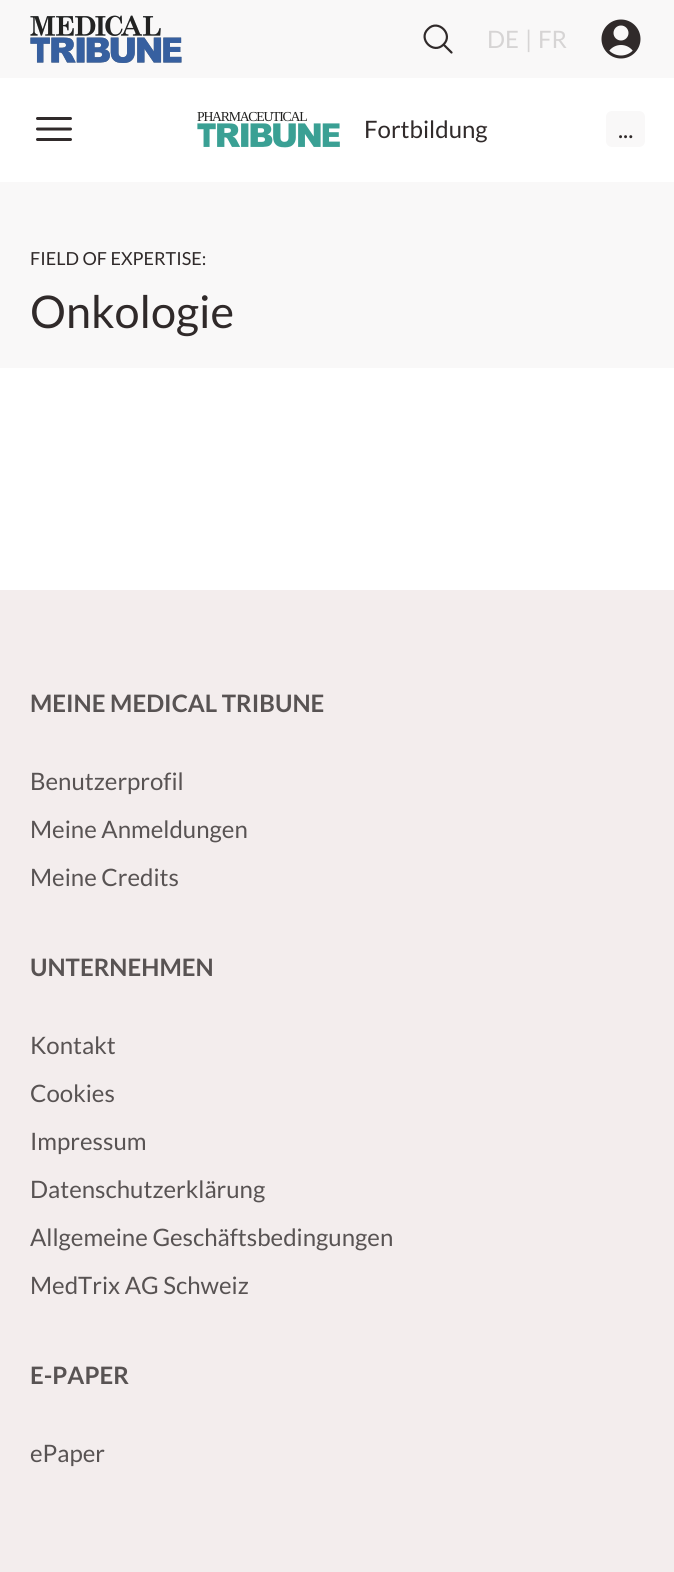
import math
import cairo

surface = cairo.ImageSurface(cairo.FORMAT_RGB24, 674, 1572)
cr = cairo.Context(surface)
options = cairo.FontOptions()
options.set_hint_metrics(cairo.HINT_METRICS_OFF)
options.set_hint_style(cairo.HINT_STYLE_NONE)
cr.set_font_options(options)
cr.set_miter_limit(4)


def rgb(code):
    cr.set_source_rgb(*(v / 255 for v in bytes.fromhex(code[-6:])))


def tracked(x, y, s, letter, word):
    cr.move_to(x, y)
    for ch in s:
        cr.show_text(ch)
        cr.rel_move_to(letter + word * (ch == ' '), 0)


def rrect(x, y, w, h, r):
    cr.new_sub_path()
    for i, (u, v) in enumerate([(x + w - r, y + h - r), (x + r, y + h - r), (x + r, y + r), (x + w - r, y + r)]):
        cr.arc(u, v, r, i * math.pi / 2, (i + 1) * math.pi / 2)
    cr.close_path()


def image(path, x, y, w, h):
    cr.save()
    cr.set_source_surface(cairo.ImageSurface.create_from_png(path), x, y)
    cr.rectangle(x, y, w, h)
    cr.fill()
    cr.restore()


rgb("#ffffff")
cr.paint()
rgb("#f9f8f8")
cr.rectangle(0, 0, 674, 78)
cr.fill()
image("img/1.png", 30, 15, 152, 48)
cr.new_path()
cr.move_to(451.5, 52.5)
cr.line_to(443.5, 44.5)
cr.move_to(443.5, 44.5)
cr.curve_to(454, 34.5, 438, 18.5, 428, 29)
cr.curve_to(417.5, 39, 433.5, 55, 443.5, 44.5)
cr.close_path()
rgb("#302a2a")
cr.set_line_width(2.2)
cr.set_line_cap(cairo.LINE_CAP_ROUND)
cr.set_line_join(cairo.LINE_JOIN_ROUND)
cr.stroke()
image("img/2.png", 601, 19, 40, 40)
cr.new_path()
cr.move_to(37.5, 118.5)
cr.line_to(70.5, 118.5)
cr.move_to(37.5, 129)
cr.line_to(70.5, 129)
cr.move_to(37.5, 139.5)
cr.line_to(70.5, 139.5)
cr.set_line_width(3)
cr.stroke()
image("img/3.png", 197, 123, 143, 25)
rgb("#f9f8f8")
rrect(606, 111, 39, 36, 6)
cr.fill()
cr.rectangle(0, 182, 674, 186)
cr.fill()
rgb("#f3eded")
cr.rectangle(0, 590, 674, 982)
cr.fill()
cr.select_font_face("Lato")
cr.set_font_size(24)
rgb("#d6d4d4")
for x, y, s in [
    (487, 48, "DE"),
    (525, 48, "|"),
    (538, 48, "FR"),
]:
    cr.move_to(x, y)
    cr.show_text(s)
cr.select_font_face("Liberation Serif")
cr.set_font_size(13.75)
rgb("#222221")
tracked(197, 121, "PHARMACEUTICAL", -1.25, 0)
cr.select_font_face("Lato")
cr.set_font_size(24)
rgb("#302a2a")
cr.move_to(364, 138)
cr.show_text("Fortbildung")
cr.move_to(618, 138)
cr.show_text("...")
cr.set_font_size(18)
cr.move_to(30, 265)
cr.show_text("FIELD OF EXPERTISE:")
cr.set_font_size(45)
cr.move_to(30, 328)
cr.show_text("Onkologie")
cr.select_font_face("Lato", cairo.FONT_SLANT_NORMAL, cairo.FONT_WEIGHT_BOLD)
cr.set_font_size(24)
rgb("#585353")
cr.move_to(30, 712)
cr.show_text("MEINE MEDICAL TRIBUNE")
cr.select_font_face("Lato")
for x, y, s in [
    (30, 790, "Benutzerprofil"),
    (30, 838, "Meine Anmeldungen"),
    (30, 886, "Meine Credits"),
]:
    cr.move_to(x, y)
    cr.show_text(s)
cr.select_font_face("Lato", cairo.FONT_SLANT_NORMAL, cairo.FONT_WEIGHT_BOLD)
cr.move_to(30, 976)
cr.show_text("UNTERNEHMEN")
cr.select_font_face("Lato")
for x, y, s in [
    (30, 1054, "Kontakt"),
    (30, 1102, "Cookies"),
    (30, 1150, "Impressum"),
    (30, 1198, "Datenschutzerklärung"),
    (30, 1246, "Allgemeine Geschäftsbedingungen"),
    (30, 1294, "MedTrix AG Schweiz"),
]:
    cr.move_to(x, y)
    cr.show_text(s)
cr.select_font_face("Lato", cairo.FONT_SLANT_NORMAL, cairo.FONT_WEIGHT_BOLD)
cr.move_to(30, 1384)
cr.show_text("E-PAPER")
cr.select_font_face("Lato")
cr.move_to(30, 1462)
cr.show_text("ePaper")
surface.write_to_png("page.png")
